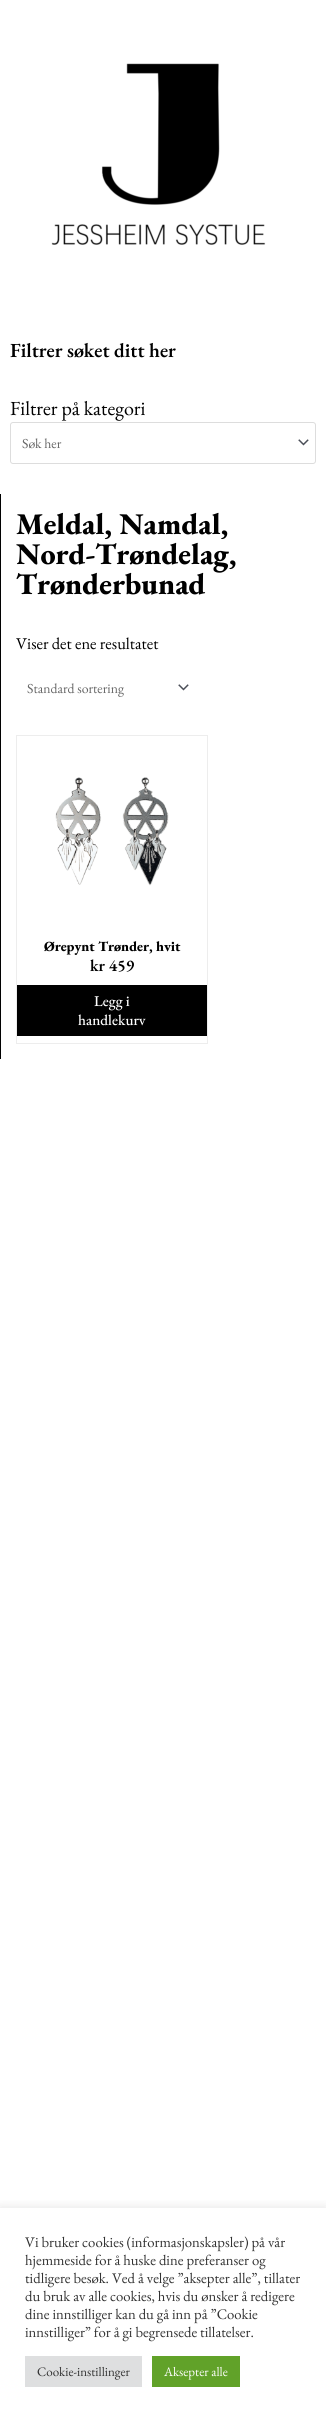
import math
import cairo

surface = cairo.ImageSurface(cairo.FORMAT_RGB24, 326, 2417)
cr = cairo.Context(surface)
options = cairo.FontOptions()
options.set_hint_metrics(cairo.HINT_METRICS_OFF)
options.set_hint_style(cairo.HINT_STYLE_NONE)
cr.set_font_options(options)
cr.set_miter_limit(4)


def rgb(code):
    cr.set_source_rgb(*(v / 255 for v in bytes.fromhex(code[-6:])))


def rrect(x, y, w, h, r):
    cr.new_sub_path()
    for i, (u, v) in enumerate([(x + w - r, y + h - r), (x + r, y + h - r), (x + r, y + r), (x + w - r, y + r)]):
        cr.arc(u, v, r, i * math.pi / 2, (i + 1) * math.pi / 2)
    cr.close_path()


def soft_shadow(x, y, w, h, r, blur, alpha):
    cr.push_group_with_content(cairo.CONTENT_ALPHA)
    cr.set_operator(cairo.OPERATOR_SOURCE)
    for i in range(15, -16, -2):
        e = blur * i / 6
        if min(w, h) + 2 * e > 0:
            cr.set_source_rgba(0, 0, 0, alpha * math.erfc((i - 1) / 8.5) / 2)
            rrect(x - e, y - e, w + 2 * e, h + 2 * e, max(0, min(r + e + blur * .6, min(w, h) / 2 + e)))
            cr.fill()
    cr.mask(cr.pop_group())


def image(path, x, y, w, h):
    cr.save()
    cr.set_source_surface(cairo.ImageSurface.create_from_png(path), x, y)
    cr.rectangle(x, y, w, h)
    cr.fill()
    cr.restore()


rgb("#ffffff")
cr.paint()
image("img/1.png", 51, 63, 215, 182)
image("img/2.png", 298, 439, 11, 7)
rrect(10.5, 422.5, 305, 41, 2.5)
rgb("#dddddd")
cr.set_line_width(1)
cr.stroke()
rgb("#010101")
cr.rectangle(0, 494, 1, 565)
cr.fill()
image("img/2.png", 178, 684, 11, 7)
cr.rectangle(16.5, 735.5, 191, 308)
rgb("#ededed")
cr.stroke()
image("img/3.png", 55, 777, 114, 109)
rgb("#000000")
cr.rectangle(17, 985, 190, 51)
cr.fill()
cr.save()
cr.rectangle(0, 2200, 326, 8)
cr.clip()
rgb("#acabab")
soft_shadow(0, 2207, 326, 209, 0, 5, 0.3)
cr.restore()
rgb("#dedfe0")
cr.rectangle(25, 2356, 117, 31)
cr.fill()
rgb("#61a229")
cr.rectangle(152, 2356, 88, 31)
cr.fill()
cr.select_font_face("EB Garamond SemiBold")
cr.set_font_size(20)
rgb("#000000")
cr.move_to(10, 357)
cr.show_text("Filtrer søket ditt her")
cr.select_font_face("EB Garamond")
cr.move_to(10, 415)
cr.show_text("Filtrer på kategori")
cr.set_font_size(13.75)
rgb("#666666")
cr.move_to(22, 448)
cr.show_text("Søk her")
cr.select_font_face("EB Garamond ExtraBold")
cr.set_font_size(30)
rgb("#000000")
for x, y, s in [
    (16, 534, "Meldal, Namdal,"),
    (16, 564, "Nord-Trøndelag,"),
    (16, 594, "Trønderbunad"),
]:
    cr.move_to(x, y)
    cr.show_text(s)
cr.select_font_face("EB Garamond")
cr.set_font_size(16.5)
cr.move_to(16, 649)
cr.show_text("Viser det ene resultatet")
cr.set_font_size(13.75)
rgb("#666666")
cr.move_to(27, 693)
cr.show_text("Standard sortering")
cr.select_font_face("EB Garamond ExtraBold")
cr.set_font_size(14)
rgb("#000000")
cr.move_to(44, 951)
cr.show_text("Ørepynt Trønder, hvit")
cr.select_font_face("EB Garamond SemiBold")
cr.set_font_size(16.5)
cr.move_to(90, 971)
cr.show_text("kr 459")
cr.select_font_face("EB Garamond Medium")
cr.set_font_size(15)
rgb("#ffffff")
cr.move_to(94, 1006)
cr.show_text("Legg i")
cr.move_to(78, 1025)
cr.show_text("handlekurv")
cr.select_font_face("EB Garamond")
cr.set_font_size(14.7)
rgb("#333333")
for x, y, s in [
    (25, 2247, "Vi bruker cookies (informasjonskapsler) på vår"),
    (25, 2265, "hjemmeside for å huske dine preferanser og"),
    (25, 2283, "tidligere besøk. Ved å velge ”aksepter alle”, tillater"),
    (25, 2301, "du bruk av alle cookies, hvis du ønsker å redigere"),
    (25, 2319, "dine innstilliger kan du gå inn på ”Cookie"),
    (25, 2337, "innstilliger” for å gi begrensede tillatelser."),
]:
    cr.move_to(x, y)
    cr.show_text(s)
cr.set_font_size(13)
cr.move_to(37, 2376)
cr.show_text("Cookie-instillinger")
rgb("#ffffff")
cr.move_to(164, 2376)
cr.show_text("Aksepter alle")
surface.write_to_png("page.png")
